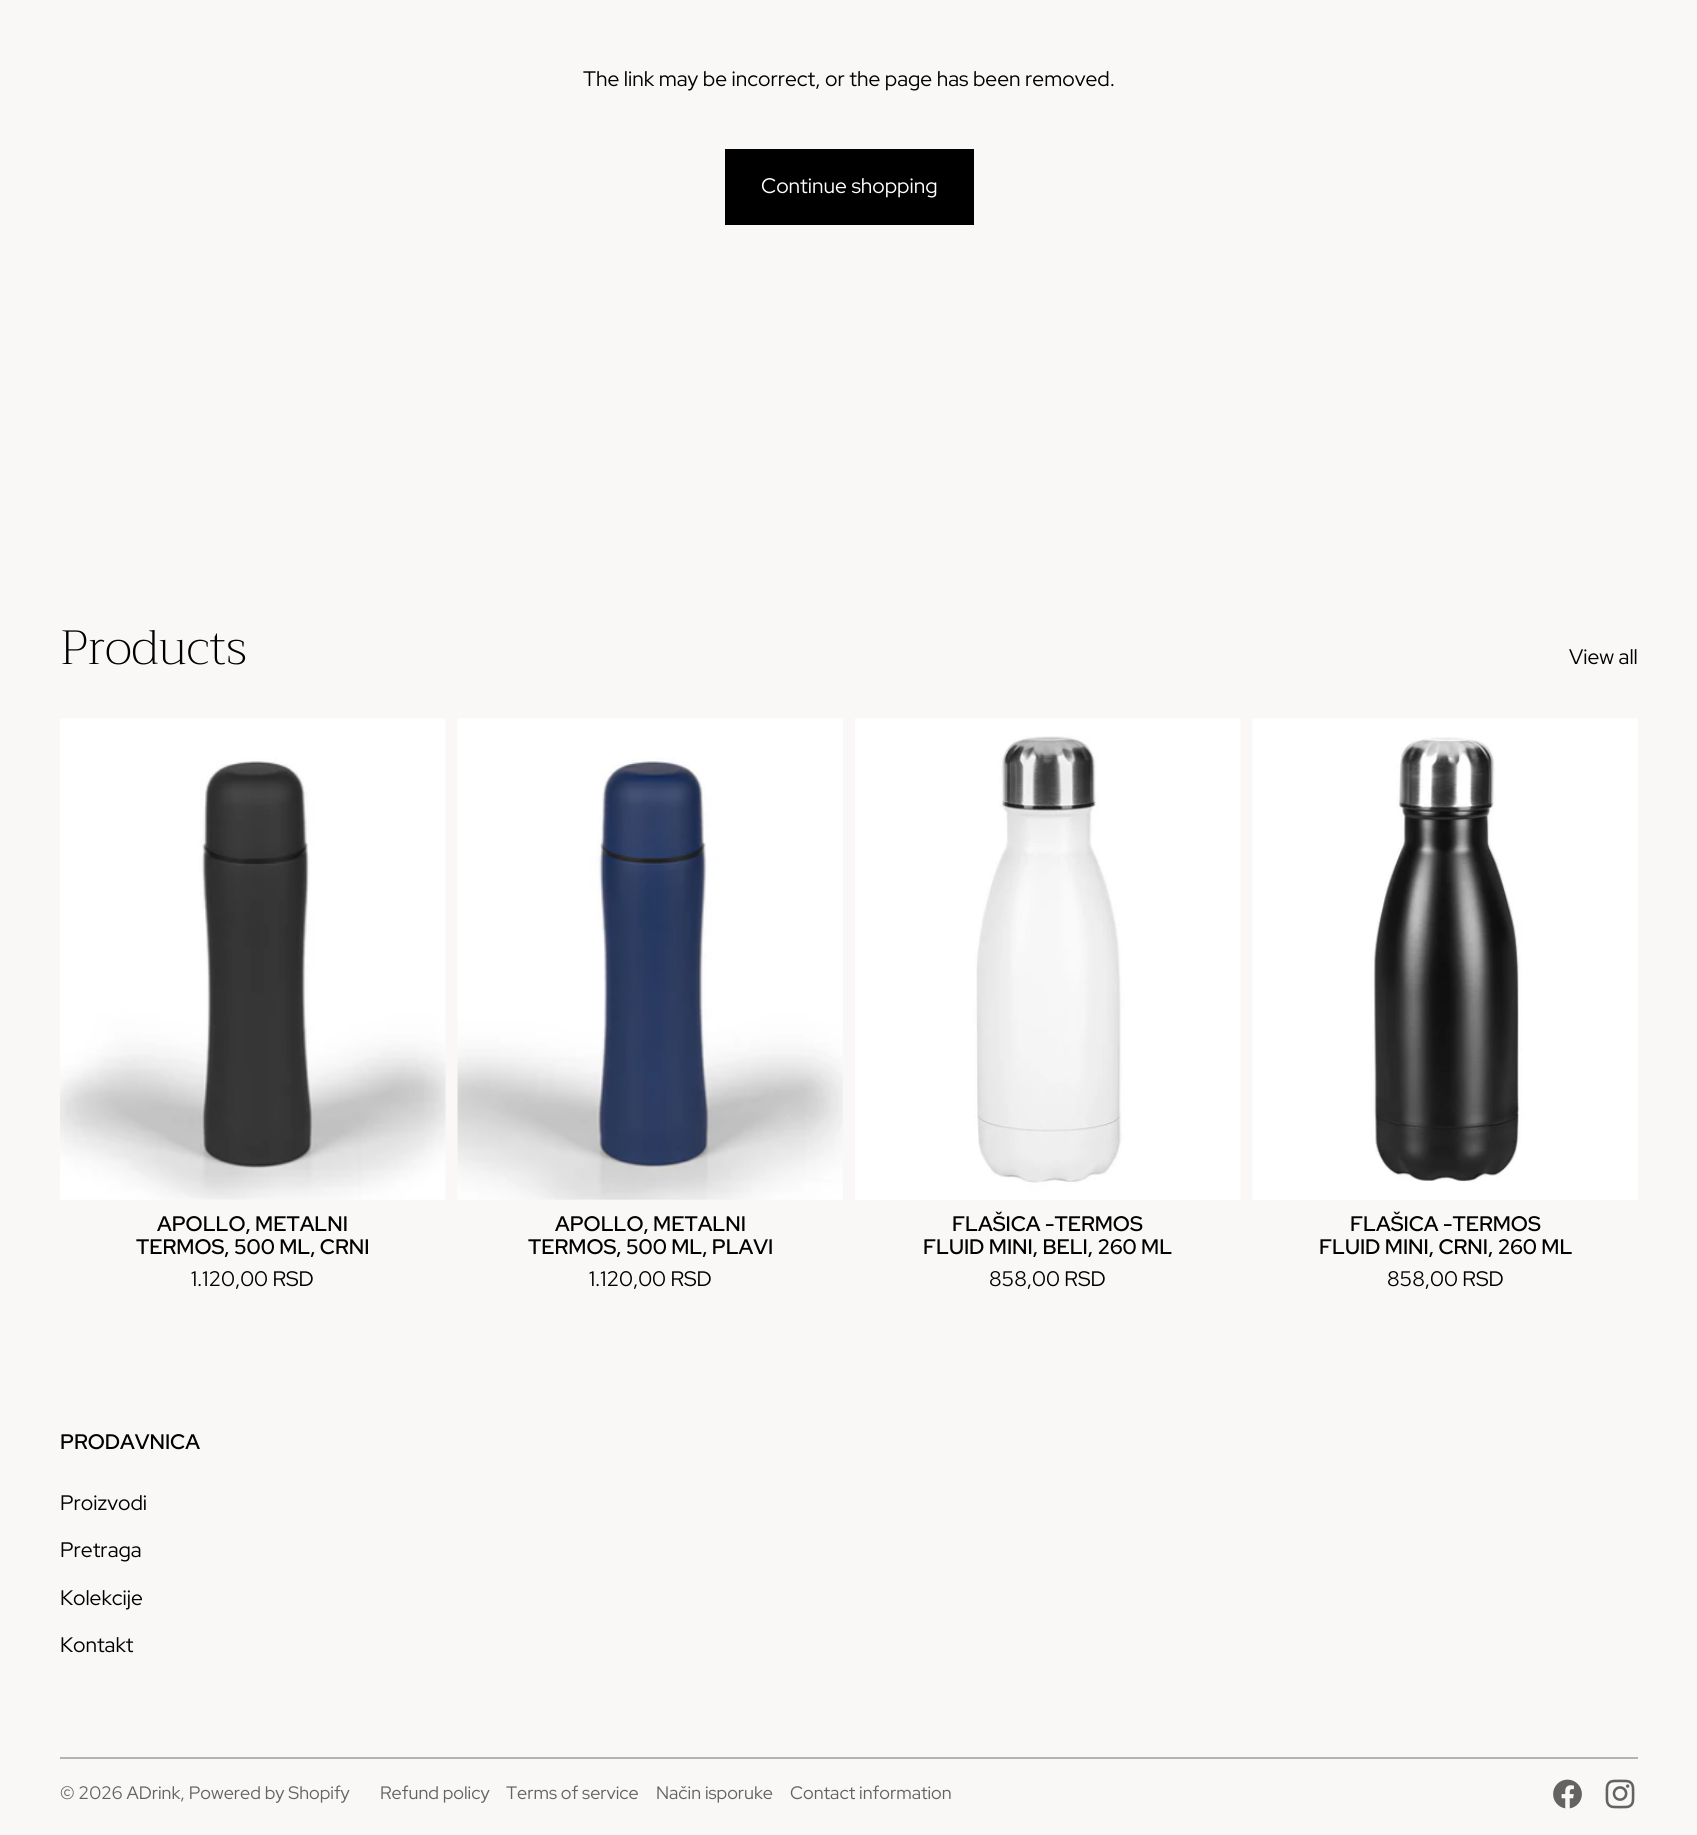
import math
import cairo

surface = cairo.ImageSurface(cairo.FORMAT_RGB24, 1697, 1835)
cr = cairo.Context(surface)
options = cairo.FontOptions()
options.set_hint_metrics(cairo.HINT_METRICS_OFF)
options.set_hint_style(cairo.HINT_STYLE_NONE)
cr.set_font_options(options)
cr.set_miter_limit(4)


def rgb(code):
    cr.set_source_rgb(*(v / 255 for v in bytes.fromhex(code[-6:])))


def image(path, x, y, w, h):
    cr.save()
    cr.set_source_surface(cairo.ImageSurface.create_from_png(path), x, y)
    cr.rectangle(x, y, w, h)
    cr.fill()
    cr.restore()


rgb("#f9f8f6")
cr.paint()
rgb("#000000")
cr.rectangle(725, 149, 249, 76)
cr.fill()
image("img/1.png", 60, 718, 386, 482)
image("img/2.png", 457, 718, 386, 482)
image("img/3.png", 855, 718, 386, 482)
image("img/4.png", 1252, 718, 386, 482)
rgb("#b3b3b1")
cr.rectangle(60, 1757, 1578, 2)
cr.fill()
image("img/5.png", 1553, 1779, 29, 30)
image("img/6.png", 1605, 1779, 30, 30)
cr.select_font_face("Red Hat Display")
cr.set_font_size(21)
rgb("#000000")
cr.move_to(583, 86)
cr.show_text("The link may be incorrect, or the page has been removed.")
rgb("#ffffff")
cr.move_to(761, 193)
cr.show_text("Continue shopping")
cr.select_font_face("Trirong Light")
cr.set_font_size(48)
rgb("#000000")
cr.move_to(60, 664)
cr.show_text("Products")
cr.select_font_face("Red Hat Display")
cr.set_font_size(21)
cr.move_to(1569, 664)
cr.show_text("View all")
cr.select_font_face("Red Hat Display SemiBold")
cr.move_to(157, 1231)
cr.show_text("APOLLO, METALNI")
cr.move_to(136, 1254)
cr.show_text("TERMOS, 500 ML, CRNI")
cr.select_font_face("Red Hat Display")
cr.move_to(191, 1286)
cr.show_text("1.120,00 RSD")
cr.select_font_face("Red Hat Display SemiBold")
cr.move_to(555, 1231)
cr.show_text("APOLLO, METALNI")
cr.move_to(528, 1254)
cr.show_text("TERMOS, 500 ML, PLAVI")
cr.select_font_face("Red Hat Display")
cr.move_to(589, 1286)
cr.show_text("1.120,00 RSD")
cr.select_font_face("Red Hat Display SemiBold")
cr.move_to(952, 1231)
cr.show_text("FLAŠICA -TERMOS")
cr.move_to(923, 1254)
cr.show_text("FLUID MINI, BELI, 260 ML")
cr.select_font_face("Red Hat Display")
cr.move_to(989, 1286)
cr.show_text("858,00 RSD")
cr.select_font_face("Red Hat Display SemiBold")
cr.move_to(1350, 1231)
cr.show_text("FLAŠICA -TERMOS")
cr.move_to(1319, 1254)
cr.show_text("FLUID MINI, CRNI, 260 ML")
cr.select_font_face("Red Hat Display")
cr.move_to(1387, 1286)
cr.show_text("858,00 RSD")
cr.select_font_face("Red Hat Display SemiBold")
cr.move_to(60, 1449)
cr.show_text("PRODAVNICA")
cr.select_font_face("Red Hat Display")
for x, y, s in [
    (60, 1510, "Proizvodi"),
    (60, 1557, "Pretraga"),
    (60, 1605, "Kolekcije"),
    (60, 1652, "Kontakt"),
]:
    cr.move_to(x, y)
    cr.show_text(s)
cr.set_font_size(18)
rgb("#646362")
for x, y, s in [
    (60, 1799, "© 2026 ADrink, Powered by Shopify"),
    (380, 1799, "Refund policy"),
    (506, 1799, "Terms of service"),
    (656, 1799, "Način isporuke"),
    (790, 1799, "Contact information"),
]:
    cr.move_to(x, y)
    cr.show_text(s)
surface.write_to_png("page.png")
